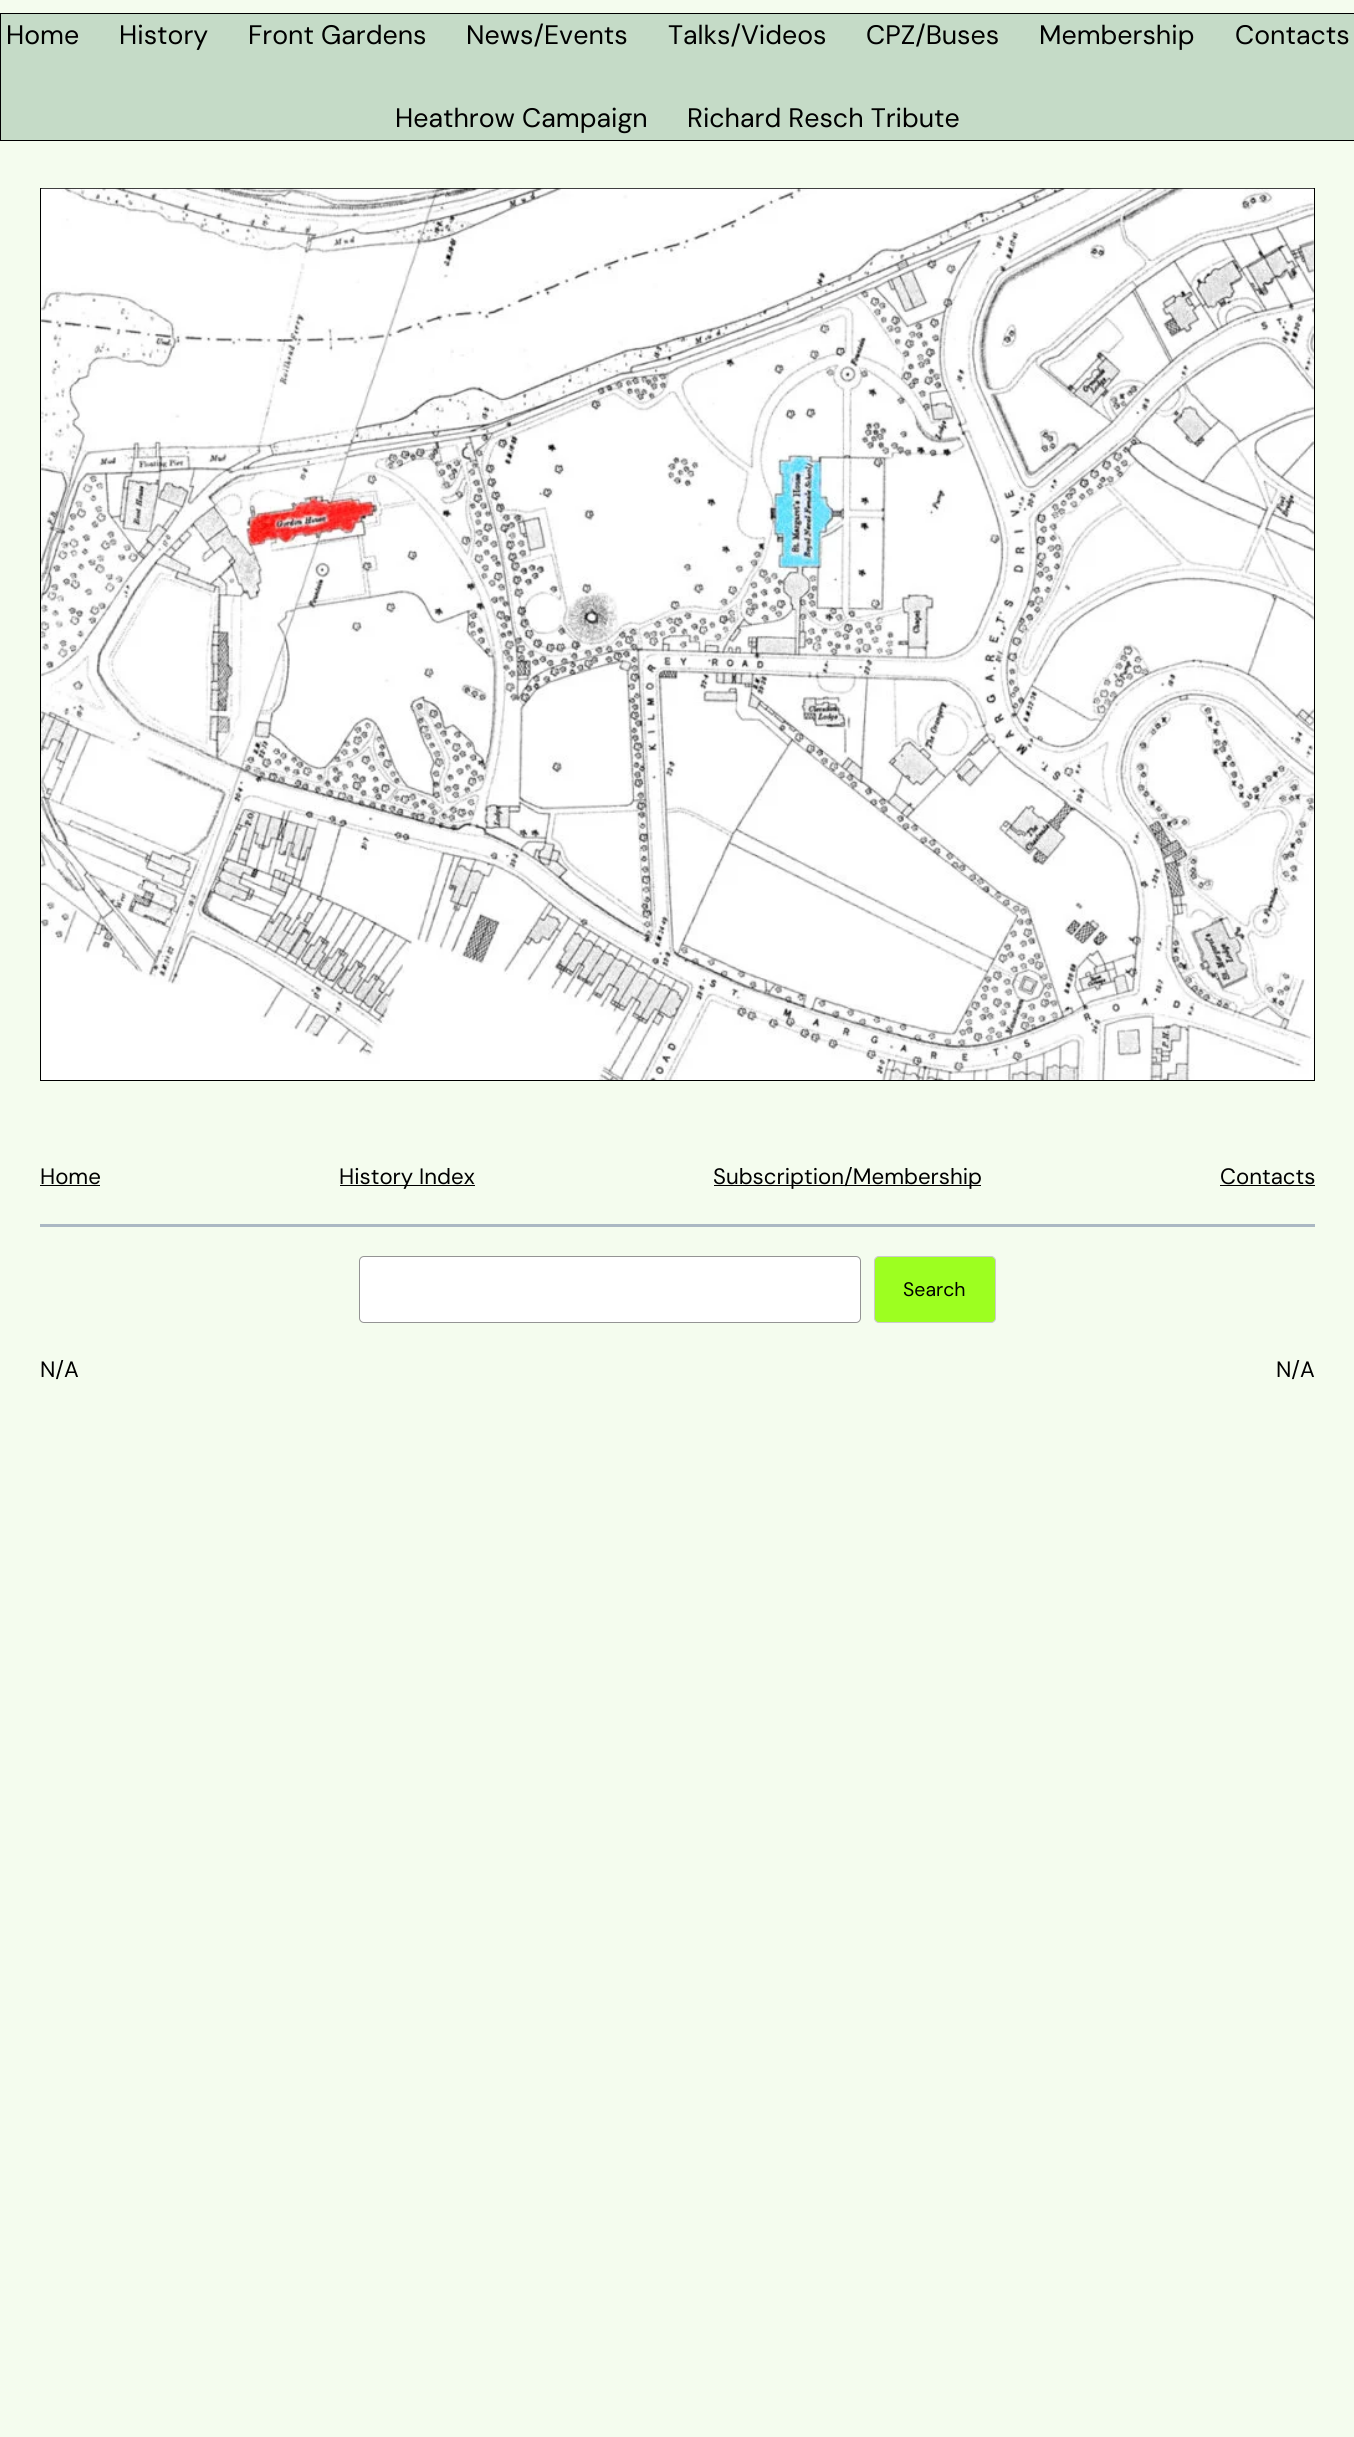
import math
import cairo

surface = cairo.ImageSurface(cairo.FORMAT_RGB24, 1354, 2437)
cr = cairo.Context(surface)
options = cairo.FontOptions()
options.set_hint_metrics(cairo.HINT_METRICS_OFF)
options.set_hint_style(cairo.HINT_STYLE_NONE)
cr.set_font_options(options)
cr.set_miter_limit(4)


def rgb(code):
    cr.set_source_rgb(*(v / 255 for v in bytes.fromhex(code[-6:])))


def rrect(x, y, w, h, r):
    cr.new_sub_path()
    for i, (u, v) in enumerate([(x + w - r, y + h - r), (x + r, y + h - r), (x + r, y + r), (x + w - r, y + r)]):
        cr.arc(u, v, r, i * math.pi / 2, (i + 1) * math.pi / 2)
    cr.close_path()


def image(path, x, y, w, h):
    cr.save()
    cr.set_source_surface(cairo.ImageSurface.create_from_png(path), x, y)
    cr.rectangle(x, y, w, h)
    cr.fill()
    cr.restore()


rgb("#f4fcee")
cr.paint()
rgb("#c5dbc7")
cr.rectangle(0.5, 13.5, 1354, 127)
cr.fill_preserve()
rgb("#000000")
cr.set_line_width(1)
cr.stroke()
cr.rectangle(40.5, 188.5, 1274, 892)
cr.stroke()
image("img/1.png", 41, 188, 1273, 892)
for x, y, w, h, color in [
    (40, 1185, 60, 1, "#000000"),
    (340, 1185, 135, 1, "#000000"),
    (714, 1185, 267, 1, "#000000"),
    (1220, 1185, 95, 1, "#000000"),
    (40, 1224, 1275, 3, "#abb8c3"),
]:
    rgb(color)
    cr.rectangle(x, y, w, h)
    cr.fill()
rgb("#ffffff")
rrect(359.5, 1256.5, 501, 66, 4.5)
cr.fill_preserve()
rgb("#949494")
cr.stroke()
rgb("#9dff20")
rrect(874.5, 1256.5, 121, 66, 4.5)
cr.fill_preserve()
rgb("#cccccc")
cr.stroke()
cr.select_font_face("DM Sans")
cr.set_font_size(26.75)
rgb("#000000")
for x, y, s in [
    (6, 44, "Home"),
    (119, 44, "History"),
    (248, 44, "Front Gardens"),
    (466, 44, "News/Events"),
    (668, 44, "Talks/Videos"),
    (866, 44, "CPZ/Buses"),
    (1039, 44, "Membership"),
    (1235, 44, "Contacts"),
    (395, 127, "Heathrow Campaign"),
    (687, 127, "Richard Resch Tribute"),
]:
    cr.move_to(x, y)
    cr.show_text(s)
cr.set_font_size(22.25)
for x, y, s in [
    (40, 1184, "Home"),
    (339, 1184, "History Index"),
    (713, 1184, "Subscription/Membership"),
    (1220, 1184, "Contacts"),
]:
    cr.move_to(x, y)
    cr.show_text(s)
cr.set_font_size(19.5)
cr.move_to(903, 1296)
cr.show_text("Search")
cr.set_font_size(22.25)
cr.move_to(40, 1377)
cr.show_text("N/A")
cr.move_to(1276, 1377)
cr.show_text("N/A")
surface.write_to_png("page.png")
